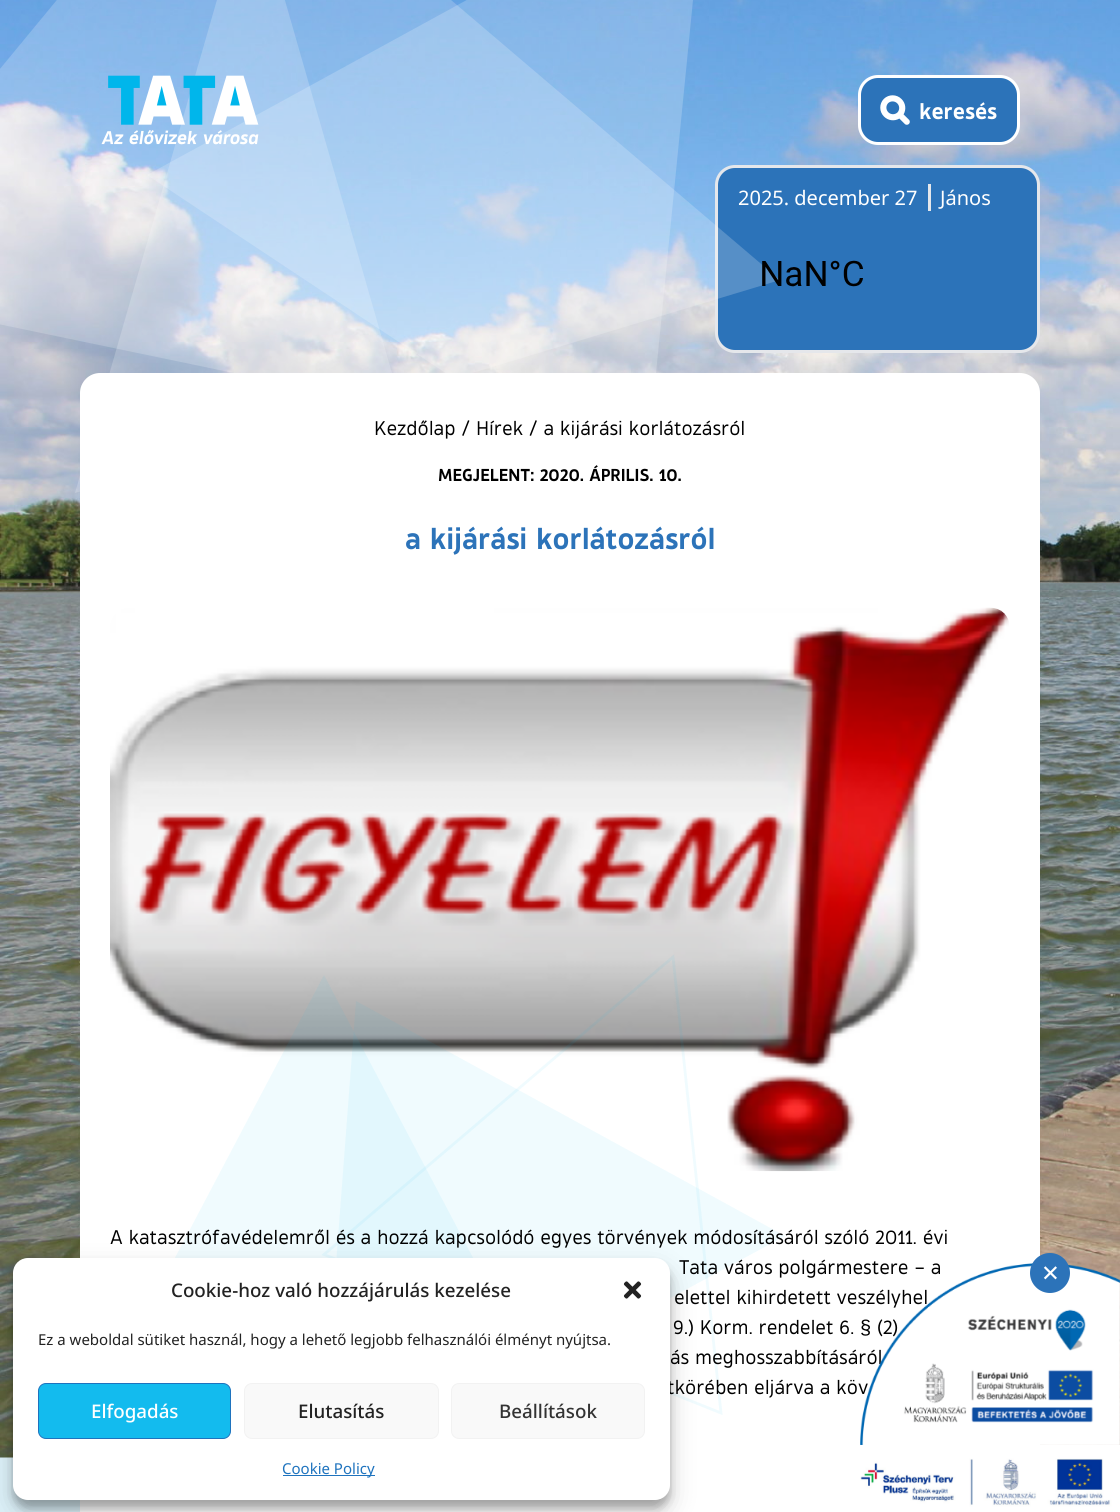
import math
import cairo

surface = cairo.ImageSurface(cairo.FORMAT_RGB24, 1120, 1512)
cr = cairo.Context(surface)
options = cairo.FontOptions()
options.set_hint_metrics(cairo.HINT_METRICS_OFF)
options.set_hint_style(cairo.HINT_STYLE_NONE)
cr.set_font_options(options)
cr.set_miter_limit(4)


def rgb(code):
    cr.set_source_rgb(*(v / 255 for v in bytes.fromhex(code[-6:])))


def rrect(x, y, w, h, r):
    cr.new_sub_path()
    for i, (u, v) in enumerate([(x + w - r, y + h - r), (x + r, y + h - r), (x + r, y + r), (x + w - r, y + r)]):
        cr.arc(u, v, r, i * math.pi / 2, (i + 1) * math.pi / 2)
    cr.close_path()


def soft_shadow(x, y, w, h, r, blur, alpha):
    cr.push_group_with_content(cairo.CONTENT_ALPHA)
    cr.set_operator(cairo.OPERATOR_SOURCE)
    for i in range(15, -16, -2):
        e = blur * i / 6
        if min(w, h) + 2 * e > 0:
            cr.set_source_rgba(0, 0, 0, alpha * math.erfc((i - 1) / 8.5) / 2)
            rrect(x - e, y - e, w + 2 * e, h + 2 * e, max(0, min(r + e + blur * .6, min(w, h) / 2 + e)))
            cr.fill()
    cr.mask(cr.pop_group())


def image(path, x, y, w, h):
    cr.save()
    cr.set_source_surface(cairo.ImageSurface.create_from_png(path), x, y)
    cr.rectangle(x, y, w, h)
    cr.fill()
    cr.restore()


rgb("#dcf1f9")
cr.paint()
image("img/1.png", 0, 0, 1120, 1458)
cr.set_source_rgba(1, 1, 1, 0.2)
cr.new_path()
cr.move_to(706, -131)
cr.line_to(147, 175)
cr.line_to(643, 504)
cr.close_path()
cr.fill()
cr.new_path()
cr.move_to(226, -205)
cr.line_to(-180, 287)
cr.line_to(402, 408)
cr.close_path()
cr.fill()
rgb("#2c73b9")
rrect(859.5, 76.5, 159, 67, 18.5)
cr.fill_preserve()
rgb("#ffffff")
cr.set_line_width(3)
cr.stroke()
image("img/3.png", 880, 95, 30, 30)
rgb("#2c73b9")
rrect(716.5, 166.5, 322, 185, 18.5)
cr.fill_preserve()
rgb("#e5e7eb")
cr.stroke()
cr.rectangle(928, 184, 3, 27)
cr.fill()
cr.select_font_face("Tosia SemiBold")
cr.set_font_size(22.5)
rgb("#ffffff")
cr.move_to(919, 119)
cr.show_text("keresés")
cr.select_font_face("Noto Sans")
cr.set_font_size(20)
cr.move_to(738, 205)
cr.show_text("2025. december 27")
cr.set_source_rgba(1, 1, 1, 0.2)
cr.new_path()
cr.move_to(263, -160)
cr.line_to(75, 493)
cr.line_to(780, 280)
cr.close_path()
cr.fill()
image("img/2.png", 101, 75, 158, 70)
rgb("#ffffff")
cr.move_to(940, 205)
cr.show_text("János")
image("img/4.png", 762, 260, 101, 27)
cr.new_path()
cr.move_to(100, 373)
cr.line_to(1020, 373)
cr.curve_to(1031, 373, 1040, 382, 1040, 393)
cr.line_to(1040, 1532)
cr.line_to(80, 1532)
cr.line_to(80, 393)
cr.curve_to(80, 382, 89, 373, 100, 373)
cr.close_path()
cr.fill()
cr.select_font_face("Tosia")
rgb("#000000")
cr.move_to(374, 435)
cr.show_text("Kezdőlap / Hírek / a kijárási korlátozásról")
cr.select_font_face("Tosia SemiBold")
cr.set_font_size(17.5)
cr.move_to(438, 481)
cr.show_text("MEGJELENT: 2020. ÁPRILIS. 10.")
cr.set_font_size(30)
rgb("#2c73b9")
cr.move_to(405, 549)
cr.show_text("a kijárási korlátozásról")
image("img/5.png", 110, 607, 899, 565)
cr.new_path()
cr.move_to(673, 957)
cr.line_to(324, 1254.5)
cr.line_to(721, 1413)
cr.close_path()
cr.set_source_rgba(0.008, 0.718, 0.933, 0.06)
cr.set_line_width(2.8)
cr.stroke()
cr.new_path()
cr.move_to(324, 975)
cr.line_to(110, 1381)
cr.line_to(538, 1381)
cr.close_path()
cr.fill()
cr.new_path()
cr.move_to(356, 1001)
cr.line_to(319, 1488)
cr.line_to(785, 1236)
cr.close_path()
cr.fill()
cr.select_font_face("Tosia")
cr.set_font_size(20)
rgb("#000000")
for x, y, s in [
    (110, 1244, "A katasztrófavédelemről és a hozzá kapcsolódó egyes törvények módosításáról szóló 2011. évi"),
    (679, 1274, "Tata város polgármestere – a"),
    (674, 1304, "elettel kihirdetett veszélyhel"),
    (673, 1334, "9.) Korm. rendelet 6."),
]:
    cr.move_to(x, y)
    cr.show_text(s)
cr.select_font_face("Liberation Sans")
cr.move_to(860, 1334)
cr.show_text("§")
cr.select_font_face("Tosia")
for x, y, s in [
    (877, 1334, "(2)"),
    (670, 1364, "ás meghosszabbításáról"),
    (667, 1394, "tkörében eljárva a köv"),
]:
    cr.move_to(x, y)
    cr.show_text(s)
image("img/6.png", 860, 1263, 260, 182)
rgb("#2c73b9")
cr.arc(1050, 1273, 20, 0, 2 * math.pi)
cr.fill()
cr.select_font_face("DejaVu Sans")
cr.set_font_size(22.5)
rgb("#ffffff")
cr.move_to(1041, 1281)
cr.show_text("✕")
image("img/7.png", 860, 1445, 260, 67)
rgb("#000000")
soft_shadow(13, 1265, 657, 243, 15, 4, 0.23)
soft_shadow(13, 1270, 657, 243, 15, 12.5, 0.19)
rgb("#ffffff")
rrect(13, 1258, 657, 242, 15)
cr.fill()
cr.select_font_face("Noto Sans Medium")
cr.set_font_size(18.75)
rgb("#222222")
cr.move_to(171, 1297)
cr.show_text("Cookie-hoz való hozzájárulás kezelése")
image("img/8.png", 623, 1281, 19, 18)
cr.select_font_face("Noto Sans")
cr.set_font_size(15)
cr.move_to(38, 1345)
cr.show_text("Ez a weboldal sütiket használ, hogy a lehető legjobb felhasználói élményt nyújtsa.")
rgb("#13bbee")
rrect(38.5, 1383.5, 192, 55, 7.5)
cr.fill_preserve()
rgb("#1e73be")
cr.set_line_width(1)
cr.stroke()
cr.select_font_face("Noto Sans Medium")
cr.set_font_size(18.75)
rgb("#ffffff")
cr.move_to(91, 1418)
cr.show_text("Elfogadás")
rgb("#f9f9f9")
rrect(244.5, 1383.5, 194, 55, 7.5)
cr.fill_preserve()
rgb("#f2f2f2")
cr.stroke()
rgb("#222222")
cr.move_to(298, 1418)
cr.show_text("Elutasítás")
rgb("#f9f9f9")
rrect(451.5, 1383.5, 193, 55, 7.5)
cr.fill_preserve()
rgb("#f2f2f2")
cr.stroke()
rgb("#333333")
cr.move_to(499, 1418)
cr.show_text("Beállítások")
rgb("#1e73be")
cr.rectangle(283, 1475, 92, 1)
cr.fill()
cr.select_font_face("Noto Sans")
cr.set_font_size(15)
cr.move_to(282, 1474)
cr.show_text("Cookie Policy")
surface.write_to_png("page.png")
